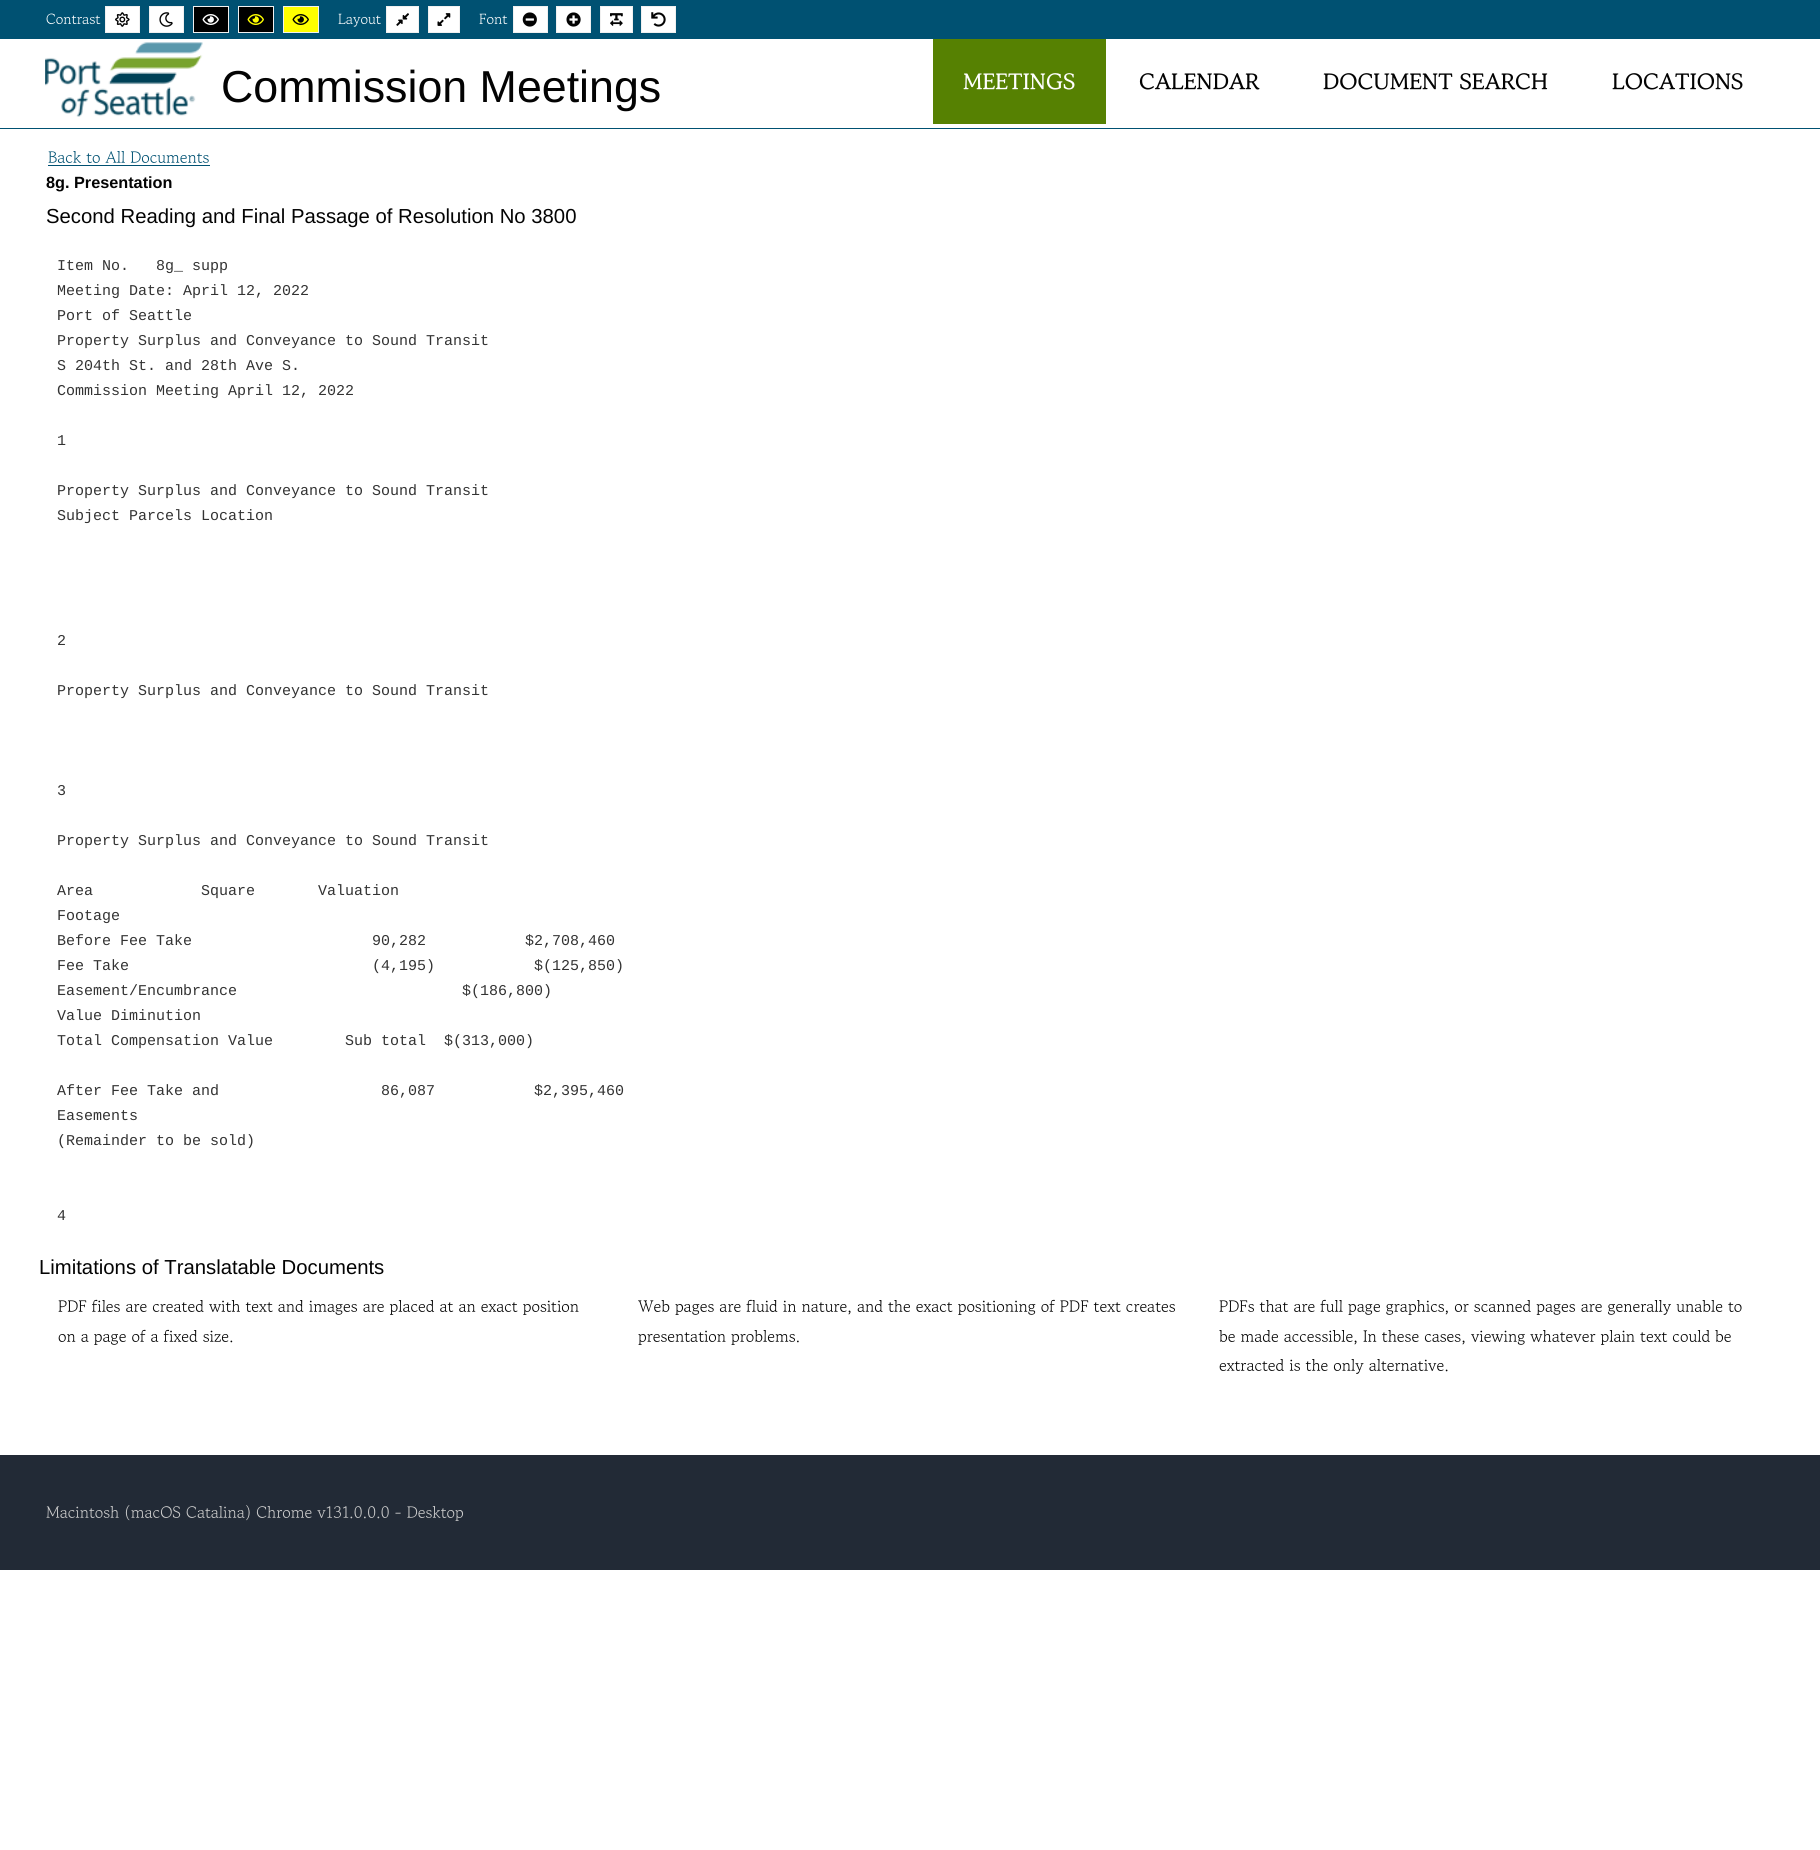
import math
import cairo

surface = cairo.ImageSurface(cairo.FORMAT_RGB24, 1820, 1850)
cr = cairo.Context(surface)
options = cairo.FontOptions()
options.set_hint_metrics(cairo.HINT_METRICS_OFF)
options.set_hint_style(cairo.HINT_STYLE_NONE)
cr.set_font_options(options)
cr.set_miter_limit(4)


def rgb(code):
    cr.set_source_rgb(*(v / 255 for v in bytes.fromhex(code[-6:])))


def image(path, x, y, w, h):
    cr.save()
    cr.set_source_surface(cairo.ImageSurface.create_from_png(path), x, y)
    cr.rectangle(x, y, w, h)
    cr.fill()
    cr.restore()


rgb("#ffffff")
cr.paint()
rgb("#005172")
cr.rectangle(0, 128, 1820, 1)
cr.fill()
cr.rectangle(0, 0, 1820, 39)
cr.fill()
rgb("#ffffff")
cr.rectangle(105.5, 6.5, 34, 26)
cr.fill_preserve()
rgb("#f0f0f0")
cr.set_line_width(1)
cr.stroke()
image("img/1.png", 115, 12, 15, 15)
rgb("#ffffff")
cr.rectangle(149.5, 6.5, 34, 26)
cr.fill_preserve()
rgb("#f0f0f0")
cr.stroke()
image("img/2.png", 159, 12, 14, 15)
rgb("#000000")
cr.rectangle(193.5, 6.5, 35, 26)
cr.fill_preserve()
rgb("#f0f0f0")
cr.stroke()
image("img/3.png", 202, 14, 17, 11)
rgb("#000000")
cr.rectangle(238.5, 6.5, 35, 26)
cr.fill_preserve()
rgb("#f0f0f0")
cr.stroke()
image("img/4.png", 247, 14, 17, 11)
rgb("#ffff00")
cr.rectangle(283.5, 6.5, 35, 26)
cr.fill_preserve()
rgb("#f0f0f0")
cr.stroke()
image("img/5.png", 292, 14, 17, 11)
rgb("#ffffff")
cr.rectangle(386.5, 6.5, 32, 26)
cr.fill_preserve()
rgb("#f0f0f0")
cr.stroke()
image("img/6.png", 396, 13, 13, 13)
rgb("#ffffff")
cr.rectangle(428.5, 6.5, 31, 26)
cr.fill_preserve()
rgb("#f0f0f0")
cr.stroke()
image("img/7.png", 437, 13, 14, 13)
rgb("#ffffff")
cr.rectangle(513.5, 6.5, 34, 26)
cr.fill_preserve()
rgb("#f0f0f0")
cr.stroke()
image("img/8.png", 522, 12, 15, 15)
rgb("#ffffff")
cr.rectangle(556.5, 6.5, 34, 26)
cr.fill_preserve()
rgb("#f0f0f0")
cr.stroke()
image("img/9.png", 566, 12, 15, 15)
rgb("#ffffff")
cr.rectangle(600.5, 6.5, 32, 26)
cr.fill_preserve()
rgb("#f0f0f0")
cr.stroke()
image("img/10.png", 610, 13, 13, 13)
rgb("#ffffff")
cr.rectangle(641.5, 6.5, 34, 26)
cr.fill_preserve()
rgb("#f0f0f0")
cr.stroke()
image("img/11.png", 651, 12, 15, 15)
image("img/12.png", 45, 42, 158, 75)
for x, y, w, h, color in [
    (933, 39, 173, 85, "#568102"),
    (48, 165, 162, 1, "#005172"),
    (0, 1455, 1820, 115, "#222a36"),
]:
    rgb(color)
    cr.rectangle(x, y, w, h)
    cr.fill()
cr.select_font_face("Gowun Batang")
cr.set_font_size(14.5)
rgb("#ffffff")
for x, y, s in [
    (46, 25, "Contrast"),
    (338, 25, "Layout"),
    (479, 25, "Font"),
]:
    cr.move_to(x, y)
    cr.show_text(s)
cr.select_font_face("Liberation Sans")
cr.set_font_size(44.75)
rgb("#030303")
cr.move_to(221, 102)
cr.show_text("Commission Meetings")
cr.select_font_face("Gowun Batang", cairo.FONT_SLANT_NORMAL, cairo.FONT_WEIGHT_BOLD)
cr.set_font_size(22.5)
rgb("#ffffff")
cr.move_to(963, 91)
cr.show_text("MEETINGS")
rgb("#030303")
for x, y, s in [
    (1139, 91, "CALENDAR"),
    (1323, 91, "DOCUMENT SEARCH"),
    (1612, 91, "LOCATIONS"),
]:
    cr.move_to(x, y)
    cr.show_text(s)
cr.select_font_face("Gowun Batang")
cr.set_font_size(16.25)
rgb("#005172")
cr.move_to(48, 164)
cr.show_text("Back to All Documents")
cr.select_font_face("Liberation Sans", cairo.FONT_SLANT_NORMAL, cairo.FONT_WEIGHT_BOLD)
rgb("#030303")
cr.move_to(46, 188)
cr.show_text("8g. Presentation")
cr.select_font_face("Liberation Sans")
cr.set_font_size(20.3)
cr.move_to(46, 223)
cr.show_text("Second Reading and Final Passage of Resolution No 3800")
cr.select_font_face("Liberation Mono")
cr.set_font_size(15)
rgb("#333333")
for x, y, s in [
    (57, 270, "Item No.   8g_ supp"),
    (57, 295, "Meeting Date: April 12, 2022"),
    (57, 320, "Port of Seattle"),
    (57, 345, "Property Surplus and Conveyance to Sound Transit"),
    (57, 370, "S 204th St. and 28th Ave S."),
    (57, 395, "Commission Meeting April 12, 2022"),
    (57, 445, "1"),
    (57, 495, "Property Surplus and Conveyance to Sound Transit"),
    (57, 520, "Subject Parcels Location"),
    (57, 645, "2"),
    (57, 695, "Property Surplus and Conveyance to Sound Transit"),
    (57, 795, "3"),
    (57, 845, "Property Surplus and Conveyance to Sound Transit"),
    (57, 895, "Area            Square       Valuation"),
    (57, 920, "Footage"),
    (57, 945, "Before Fee Take                    90,282           $2,708,460"),
    (57, 970, "Fee Take                           (4,195)           $(125,850)"),
    (57, 995, "Easement/Encumbrance                         $(186,800)"),
    (57, 1020, "Value Diminution"),
    (57, 1045, "Total Compensation Value        Sub total  $(313,000)"),
    (57, 1095, "After Fee Take and                  86,087           $2,395,460"),
    (57, 1120, "Easements"),
    (57, 1145, "(Remainder to be sold)"),
    (57, 1220, "4"),
]:
    cr.move_to(x, y)
    cr.show_text(s)
cr.select_font_face("Liberation Sans")
cr.set_font_size(20.3)
rgb("#030303")
cr.move_to(39, 1274)
cr.show_text("Limitations of Translatable Documents")
cr.select_font_face("Gowun Batang")
cr.set_font_size(16.25)
for x, y, s in [
    (58, 1313, "PDF files are created with text and images are placed at an exact position"),
    (58, 1343, "on a page of a fixed size."),
    (638, 1313, "Web pages are fluid in nature, and the exact positioning of PDF text creates"),
    (638, 1343, "presentation problems."),
    (1219, 1313, "PDFs that are full page graphics, or scanned pages are generally unable to"),
    (1219, 1343, "be made accessible, In these cases, viewing whatever plain text could be"),
    (1219, 1372, "extracted is the only alternative."),
]:
    cr.move_to(x, y)
    cr.show_text(s)
rgb("#cccccc")
cr.move_to(46, 1519)
cr.show_text("Macintosh (macOS Catalina) Chrome v131.0.0.0 - Desktop")
surface.write_to_png("page.png")
